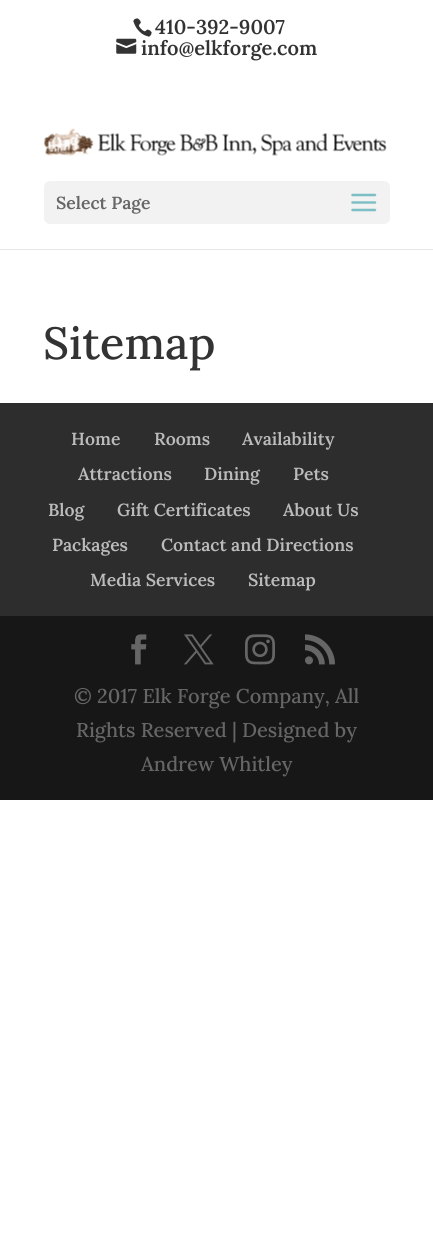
import math
import cairo

surface = cairo.ImageSurface(cairo.FORMAT_RGB24, 433, 1243)
cr = cairo.Context(surface)
options = cairo.FontOptions()
options.set_hint_metrics(cairo.HINT_METRICS_OFF)
options.set_hint_style(cairo.HINT_STYLE_NONE)
cr.set_font_options(options)
cr.set_miter_limit(4)


def rgb(code):
    cr.set_source_rgb(*(v / 255 for v in bytes.fromhex(code[-6:])))


def rrect(x, y, w, h, r):
    cr.new_sub_path()
    for i, (u, v) in enumerate([(x + w - r, y + h - r), (x + r, y + h - r), (x + r, y + r), (x + w - r, y + r)]):
        cr.arc(u, v, r, i * math.pi / 2, (i + 1) * math.pi / 2)
    cr.close_path()


def image(path, x, y, w, h):
    cr.save()
    cr.set_source_surface(cairo.ImageSurface.create_from_png(path), x, y)
    cr.rectangle(x, y, w, h)
    cr.fill()
    cr.restore()


rgb("#ffffff")
cr.paint()
image("img/1.png", 133, 18, 19, 19)
image("img/2.png", 116, 38, 21, 16)
rgb("#e6e6e6")
cr.new_path()
cr.move_to(0, 249)
cr.line_to(0, 250)
cr.line_to(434, 250)
cr.line_to(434, 74)
cr.line_to(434, 249)
cr.close_path()
cr.fill()
image("img/3.png", 43, 128, 344, 29)
rgb("#f2f2f2")
rrect(44, 181, 346, 43, 6)
cr.fill()
image("img/4.png", 351, 193, 26, 19)
rgb("#2d2d2d")
cr.rectangle(0, 403, 433, 213)
cr.fill()
rgb("#171717")
cr.rectangle(0, 616, 433, 184)
cr.fill()
image("img/5.png", 131, 634, 16, 31)
image("img/6.png", 184, 634, 30, 31)
image("img/7.png", 245, 634, 30, 31)
image("img/8.png", 305, 634, 30, 31)
cr.select_font_face("Lora SemiBold")
cr.set_font_size(20)
rgb("#333333")
cr.move_to(155, 34)
cr.show_text("410-392-9007")
cr.move_to(141, 55)
cr.show_text("info@elkforge.com")
cr.set_font_size(17.5)
rgb("#666666")
cr.move_to(56, 209)
cr.show_text("Select Page")
cr.select_font_face("Lora Medium")
cr.set_font_size(45)
rgb("#333333")
cr.move_to(43, 359)
cr.show_text("Sitemap")
cr.select_font_face("Lora SemiBold")
cr.set_font_size(17.5)
rgb("#bbbbbb")
for x, y, s in [
    (71, 445, "Home"),
    (154, 445, "Rooms"),
    (242, 445, "Availability"),
    (78, 480, "Attractions"),
    (204, 480, "Dining"),
    (293, 480, "Pets"),
    (48, 516, "Blog"),
    (117, 516, "Gift Certificates"),
    (283, 516, "About Us"),
    (52, 551, "Packages"),
    (161, 551, "Contact and Directions"),
    (90, 586, "Media Services"),
    (248, 586, "Sitemap"),
]:
    cr.move_to(x, y)
    cr.show_text(s)
cr.select_font_face("Lora Medium")
cr.set_font_size(20)
rgb("#666666")
for x, y, s in [
    (74, 703, "© 2017 Elk Forge Company, All"),
    (76, 737, "Rights Reserved | Designed by"),
    (141, 771, "Andrew Whitley"),
]:
    cr.move_to(x, y)
    cr.show_text(s)
surface.write_to_png("page.png")
